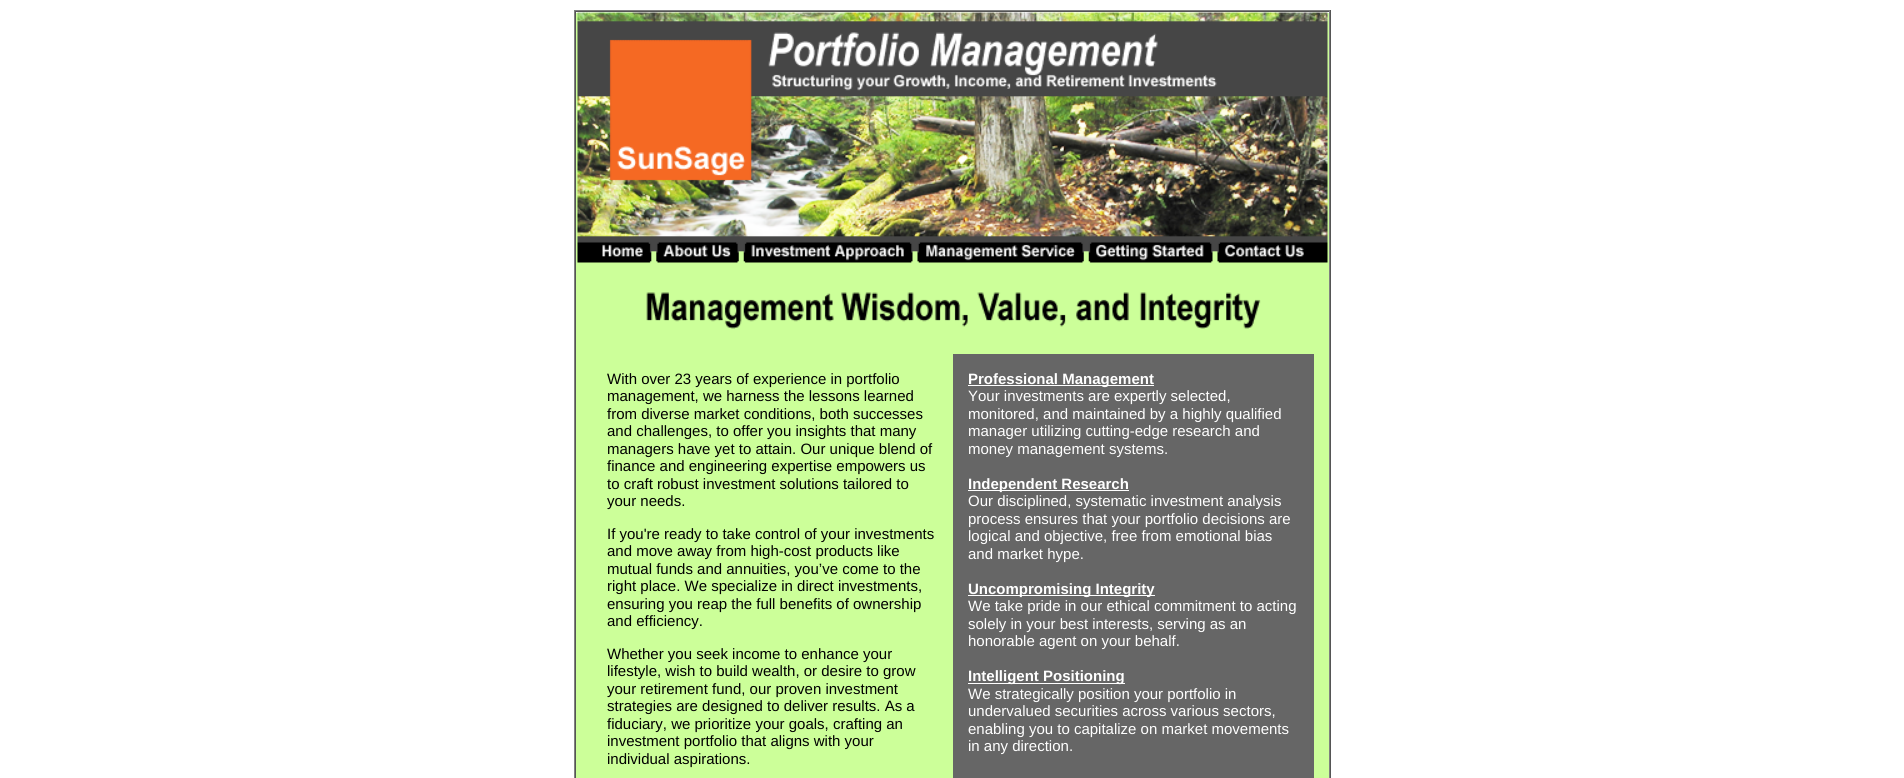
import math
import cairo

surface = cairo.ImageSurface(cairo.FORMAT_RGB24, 1904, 778)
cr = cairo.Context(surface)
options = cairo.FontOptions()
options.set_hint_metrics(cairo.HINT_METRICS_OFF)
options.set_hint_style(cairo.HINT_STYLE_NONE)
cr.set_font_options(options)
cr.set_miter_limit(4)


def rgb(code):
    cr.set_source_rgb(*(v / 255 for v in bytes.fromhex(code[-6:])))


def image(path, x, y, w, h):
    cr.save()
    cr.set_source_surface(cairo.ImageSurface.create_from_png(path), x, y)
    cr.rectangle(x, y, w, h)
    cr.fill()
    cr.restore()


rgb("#ffffff")
cr.paint()
for x, y, w, h, color in [
    (574, 10, 757, 1, "#808080"),
    (1330, 10, 1, 768, "#555555"),
    (574, 10, 1, 768, "#808080"),
    (575, 11, 755, 1, "#555555"),
    (1329, 11, 1, 767, "#808080"),
    (575, 11, 1, 767, "#555555"),
    (576, 13, 753, 250, "#ccff99"),
]:
    rgb(color)
    cr.rectangle(x, y, w, h)
    cr.fill()
image("img/1.png", 577, 12, 751, 251)
cr.rectangle(576, 263, 753, 515)
cr.fill()
image("img/2.png", 646, 292, 615, 37)
for x, y, w, h, color in [
    (953, 354, 361, 424, "#666666"),
    (968, 385, 186, 1, "#ffffff"),
    (968, 490, 161, 1, "#ffffff"),
    (968, 595, 187, 1, "#ffffff"),
    (968, 683, 157, 1, "#ffffff"),
]:
    rgb(color)
    cr.rectangle(x, y, w, h)
    cr.fill()
cr.select_font_face("Liberation Sans")
cr.set_font_size(15)
rgb("#000000")
for x, y, s in [
    (607, 384, "With over 23 years of experience in portfolio"),
    (607, 401, "management, we harness the lessons learned"),
    (607, 419, "from diverse market conditions, both successes"),
    (607, 436, "and challenges, to offer you insights that many"),
    (607, 454, "managers have yet to attain. Our unique blend of"),
    (607, 471, "finance and engineering expertise empowers us"),
    (607, 489, "to craft robust investment solutions tailored to"),
    (607, 506, "your needs."),
    (607, 539, "If you're ready to take control of your investments"),
    (607, 556, "and move away from high-cost products like"),
    (607, 574, "mutual funds and annuities, you’ve come to the"),
    (607, 591, "right place. We specialize in direct investments,"),
    (607, 609, "ensuring you reap the full benefits of ownership"),
    (607, 626, "and efficiency."),
    (607, 659, "Whether you seek income to enhance your"),
    (607, 676, "lifestyle, wish to build wealth, or desire to grow"),
    (607, 694, "your retirement fund, our proven investment"),
    (607, 711, "strategies are designed to deliver results. As a"),
    (607, 729, "fiduciary, we prioritize your goals, crafting an"),
    (607, 746, "investment portfolio that aligns with your"),
    (607, 764, "individual aspirations."),
]:
    cr.move_to(x, y)
    cr.show_text(s)
cr.select_font_face("Liberation Sans", cairo.FONT_SLANT_NORMAL, cairo.FONT_WEIGHT_BOLD)
rgb("#ffffff")
cr.move_to(968, 384)
cr.show_text("Professional Management")
cr.select_font_face("Liberation Sans")
for x, y, s in [
    (968, 401, "Your investments are expertly selected,"),
    (968, 419, "monitored, and maintained by a highly qualified"),
    (968, 436, "manager utilizing cutting-edge research and"),
    (968, 454, "money management systems."),
]:
    cr.move_to(x, y)
    cr.show_text(s)
cr.select_font_face("Liberation Sans", cairo.FONT_SLANT_NORMAL, cairo.FONT_WEIGHT_BOLD)
cr.move_to(968, 489)
cr.show_text("Independent Research")
cr.select_font_face("Liberation Sans")
for x, y, s in [
    (968, 506, "Our disciplined, systematic investment analysis"),
    (968, 524, "process ensures that your portfolio decisions are"),
    (968, 541, "logical and objective, free from emotional bias"),
    (968, 559, "and market hype."),
]:
    cr.move_to(x, y)
    cr.show_text(s)
cr.select_font_face("Liberation Sans", cairo.FONT_SLANT_NORMAL, cairo.FONT_WEIGHT_BOLD)
cr.move_to(968, 594)
cr.show_text("Uncompromising Integrity")
cr.select_font_face("Liberation Sans")
for x, y, s in [
    (968, 611, "We take pride in our ethical commitment to acting"),
    (968, 629, "solely in your best interests, serving as an"),
    (968, 646, "honorable agent on your behalf."),
]:
    cr.move_to(x, y)
    cr.show_text(s)
cr.select_font_face("Liberation Sans", cairo.FONT_SLANT_NORMAL, cairo.FONT_WEIGHT_BOLD)
cr.move_to(968, 681)
cr.show_text("Intelligent Positioning")
cr.select_font_face("Liberation Sans")
for x, y, s in [
    (968, 699, "We strategically position your portfolio in"),
    (968, 716, "undervalued securities across various sectors,"),
    (968, 734, "enabling you to capitalize on market movements"),
    (968, 751, "in any direction."),
]:
    cr.move_to(x, y)
    cr.show_text(s)
surface.write_to_png("page.png")
